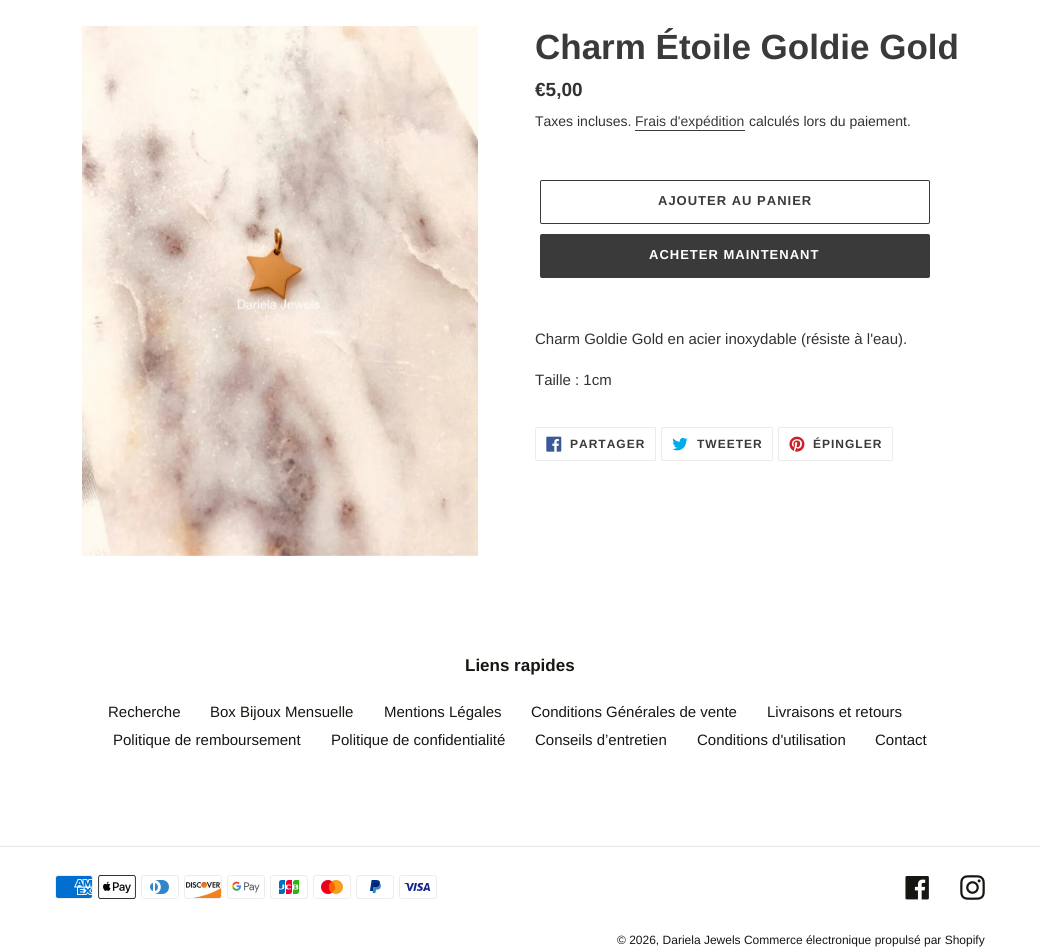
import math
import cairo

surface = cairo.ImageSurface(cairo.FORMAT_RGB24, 1040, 951)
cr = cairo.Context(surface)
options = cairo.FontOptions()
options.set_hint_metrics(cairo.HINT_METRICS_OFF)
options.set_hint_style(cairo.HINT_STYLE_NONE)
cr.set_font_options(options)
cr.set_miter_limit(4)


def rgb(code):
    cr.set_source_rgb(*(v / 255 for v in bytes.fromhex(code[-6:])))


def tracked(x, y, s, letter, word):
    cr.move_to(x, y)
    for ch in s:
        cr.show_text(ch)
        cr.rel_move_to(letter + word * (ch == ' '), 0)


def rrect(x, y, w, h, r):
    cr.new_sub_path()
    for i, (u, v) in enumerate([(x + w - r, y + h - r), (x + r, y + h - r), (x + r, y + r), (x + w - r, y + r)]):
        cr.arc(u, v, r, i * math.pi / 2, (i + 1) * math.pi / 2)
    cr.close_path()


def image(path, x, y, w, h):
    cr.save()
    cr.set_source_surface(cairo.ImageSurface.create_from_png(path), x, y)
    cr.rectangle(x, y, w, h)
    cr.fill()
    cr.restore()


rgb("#ffffff")
cr.paint()
image("img/1.png", 82, 26, 396, 530)
rgb("#3a3a3a")
cr.rectangle(635, 130, 110, 1)
cr.fill()
rrect(540.5, 180.5, 389, 43, 1.5)
cr.set_line_width(1)
cr.stroke()
rrect(540, 234, 390, 44, 2)
cr.fill()
rrect(535.5, 427.5, 120, 33, 1.5)
rgb("#ebebeb")
cr.stroke()
image("img/2.png", 546, 436, 16, 16)
rrect(661.5, 427.5, 111, 33, 1.5)
cr.stroke()
image("img/3.png", 672, 437, 16, 14)
rrect(778.5, 427.5, 114, 33, 1.5)
cr.stroke()
image("img/4.png", 789, 436, 16, 16)
rgb("#e6e6e6")
cr.rectangle(0, 846, 1040, 1)
cr.fill()
image("img/5.png", 55, 875, 38, 24)
image("img/6.png", 98, 875, 38, 24)
image("img/7.png", 141, 875, 38, 24)
image("img/8.png", 184, 875, 38, 24)
image("img/9.png", 227, 875, 38, 24)
image("img/10.png", 270, 875, 38, 24)
image("img/11.png", 313, 875, 38, 24)
image("img/12.png", 356, 875, 38, 24)
image("img/13.png", 399, 875, 38, 24)
image("img/14.png", 905, 876, 24, 24)
image("img/15.png", 960, 875, 25, 25)
cr.select_font_face("Liberation Sans", cairo.FONT_SLANT_NORMAL, cairo.FONT_WEIGHT_BOLD)
cr.set_font_size(35)
rgb("#3a3a3a")
cr.move_to(535, 59)
cr.show_text("Charm Étoile Goldie Gold")
cr.set_font_size(19)
rgb("#333232")
cr.move_to(535, 96)
cr.show_text("€5,00")
cr.select_font_face("Liberation Sans")
cr.set_font_size(14)
cr.move_to(535, 126)
cr.show_text("Taxes incluses.")
rgb("#3a3a3a")
cr.move_to(635, 126)
cr.show_text("Frais d'expédition")
rgb("#333232")
cr.move_to(749, 126)
cr.show_text("calculés lors du paiement.")
cr.select_font_face("Liberation Sans", cairo.FONT_SLANT_NORMAL, cairo.FONT_WEIGHT_BOLD)
cr.set_font_size(13)
rgb("#3a3a3a")
tracked(658, 205, "AJOUTER AU PANIER", 1, 0)
rgb("#ffffff")
tracked(649, 259, "ACHETER MAINTENANT", 1, 0)
cr.select_font_face("Liberation Sans")
cr.set_font_size(15)
rgb("#333232")
cr.move_to(535, 344)
cr.show_text("Charm Goldie Gold en acier inoxydable (résiste à l'eau).")
cr.move_to(535, 385)
cr.show_text("Taille : 1cm")
cr.select_font_face("Liberation Sans", cairo.FONT_SLANT_NORMAL, cairo.FONT_WEIGHT_BOLD)
cr.set_font_size(12)
rgb("#3a3a3a")
for x, y, s in [
    (570, 448, "PARTAGER"),
    (697, 448, "TWEETER"),
    (813, 448, "ÉPINGLER"),
]:
    tracked(x, y, s, 1, 0)
cr.set_font_size(17)
rgb("#161612")
cr.move_to(465, 671)
cr.show_text("Liens rapides")
cr.select_font_face("Liberation Sans")
cr.set_font_size(15)
for x, y, s in [
    (108, 717, "Recherche"),
    (210, 717, "Box Bijoux Mensuelle"),
    (384, 717, "Mentions Légales"),
    (531, 717, "Conditions Générales de vente"),
    (767, 717, "Livraisons et retours"),
    (113, 745, "Politique de remboursement"),
    (331, 745, "Politique de confidentialité"),
    (535, 745, "Conseils d’entretien"),
    (697, 745, "Conditions d'utilisation"),
    (875, 745, "Contact"),
]:
    cr.move_to(x, y)
    cr.show_text(s)
cr.set_font_size(12)
cr.move_to(617, 944)
cr.show_text("© 2026, Dariela Jewels Commerce électronique propulsé par Shopify")
surface.write_to_png("page.png")
